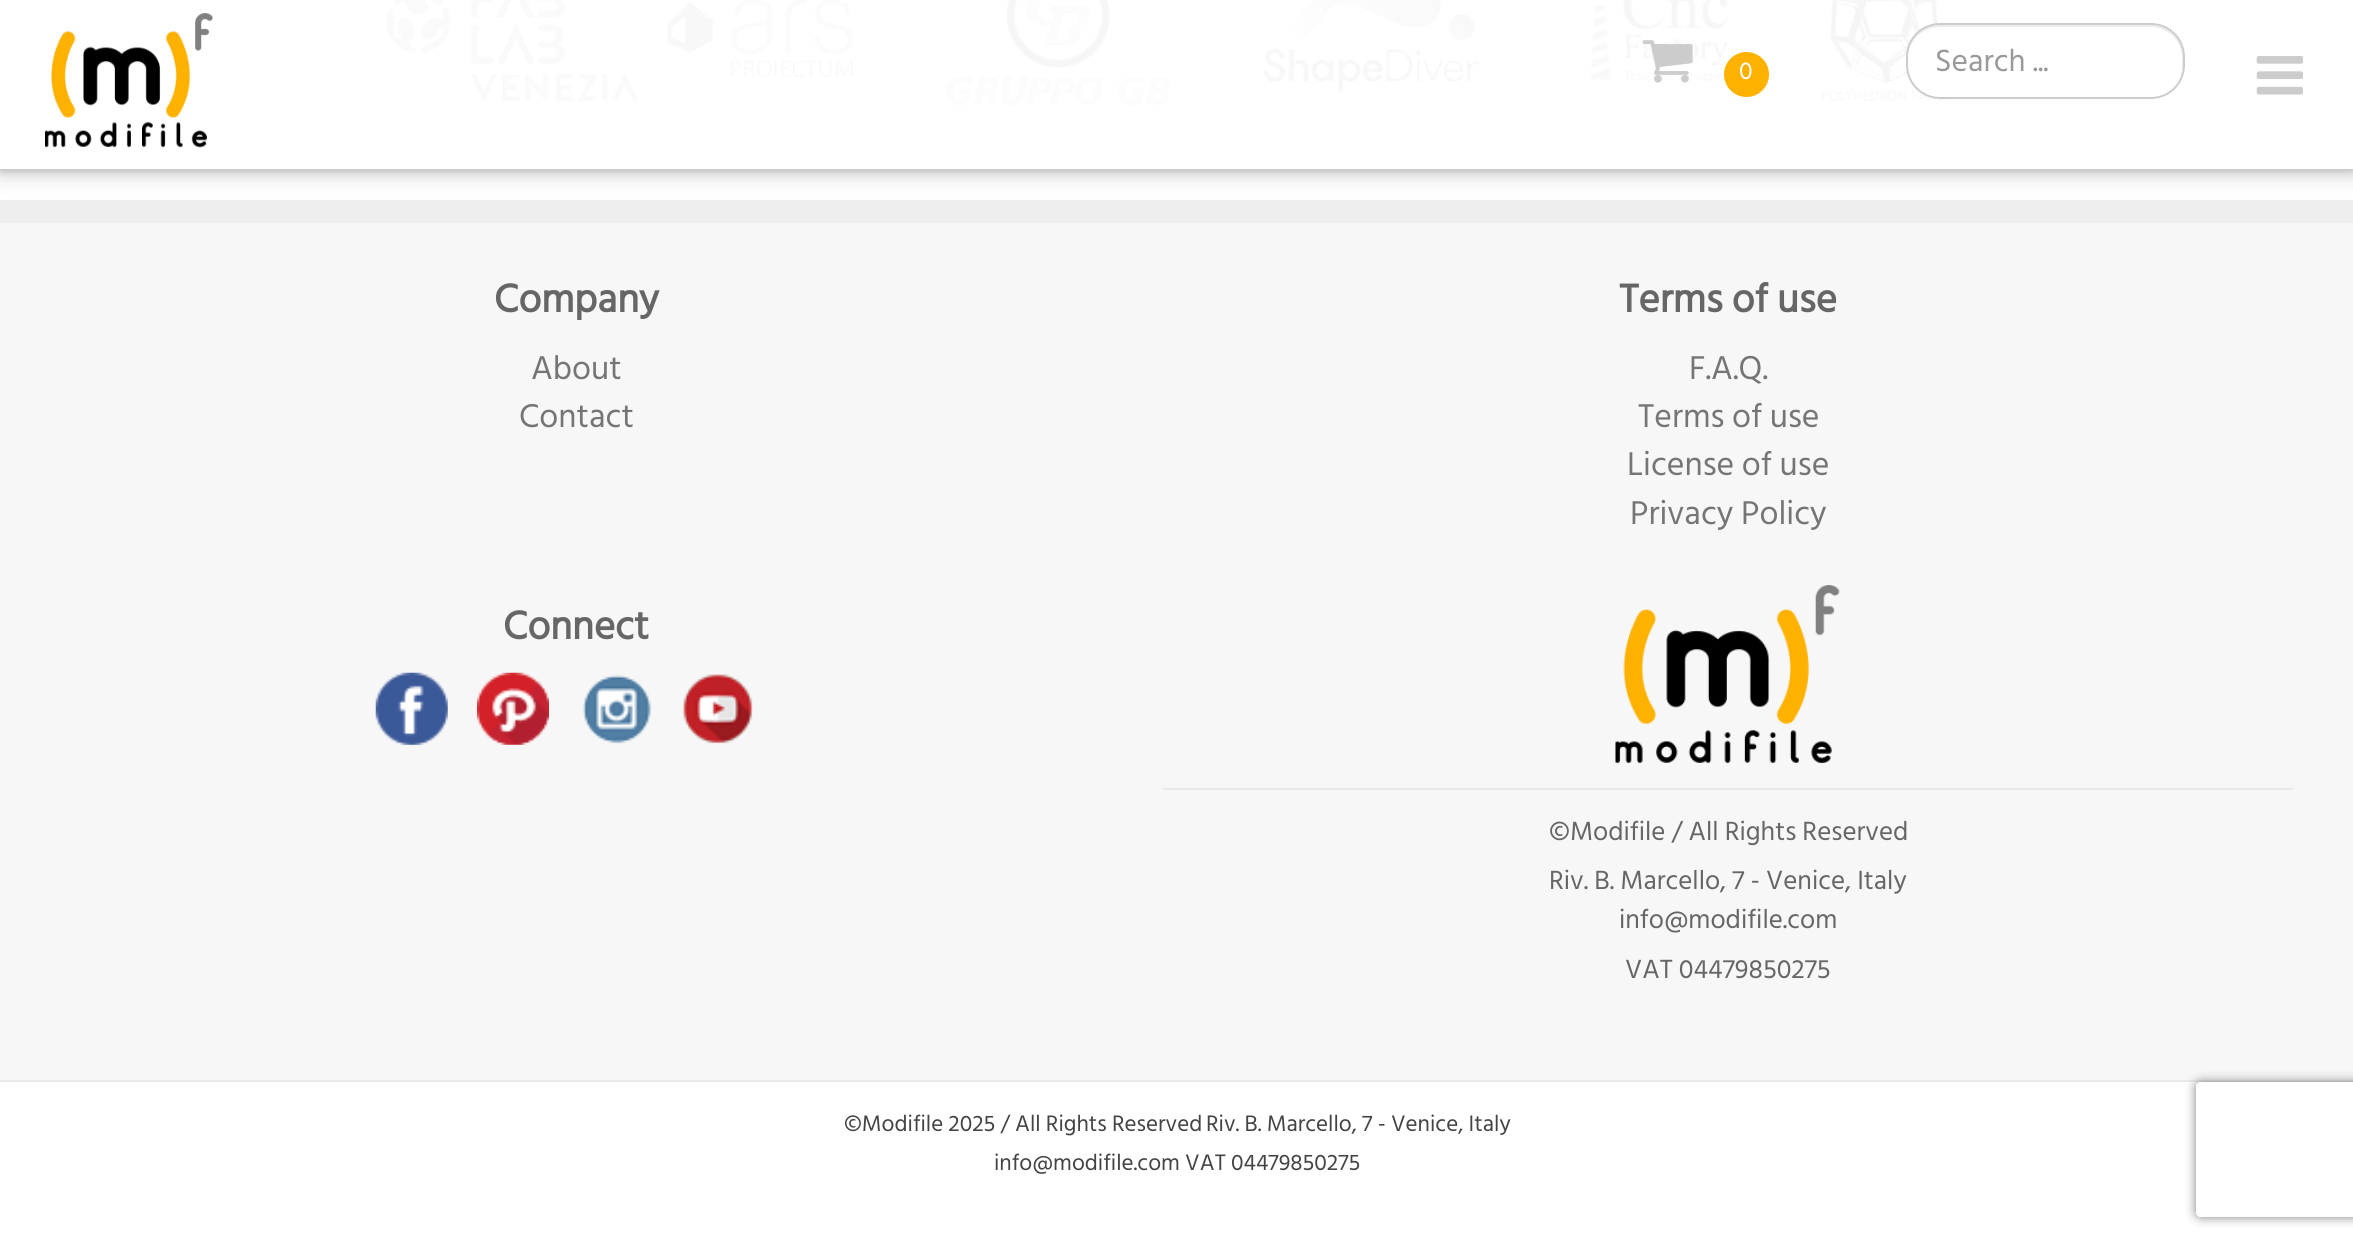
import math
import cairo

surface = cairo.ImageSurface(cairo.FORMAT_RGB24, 2353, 1247)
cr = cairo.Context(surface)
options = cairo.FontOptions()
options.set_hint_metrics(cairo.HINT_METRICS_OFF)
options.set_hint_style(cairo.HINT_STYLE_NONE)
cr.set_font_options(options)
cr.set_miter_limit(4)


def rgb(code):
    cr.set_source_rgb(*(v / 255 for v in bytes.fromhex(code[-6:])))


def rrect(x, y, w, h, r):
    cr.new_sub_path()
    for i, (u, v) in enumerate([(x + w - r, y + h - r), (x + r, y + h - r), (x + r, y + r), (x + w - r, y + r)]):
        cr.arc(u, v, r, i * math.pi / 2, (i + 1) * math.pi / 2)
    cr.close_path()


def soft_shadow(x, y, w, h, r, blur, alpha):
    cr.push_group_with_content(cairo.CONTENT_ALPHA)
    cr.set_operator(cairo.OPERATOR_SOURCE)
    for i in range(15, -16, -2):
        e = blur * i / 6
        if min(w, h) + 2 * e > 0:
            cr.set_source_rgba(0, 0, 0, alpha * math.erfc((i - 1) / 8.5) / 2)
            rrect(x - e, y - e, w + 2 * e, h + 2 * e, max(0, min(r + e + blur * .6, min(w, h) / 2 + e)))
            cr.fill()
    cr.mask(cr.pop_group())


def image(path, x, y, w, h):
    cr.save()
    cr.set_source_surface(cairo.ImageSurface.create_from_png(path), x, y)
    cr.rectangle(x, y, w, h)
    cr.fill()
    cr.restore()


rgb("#ffffff")
cr.paint()
image("img/4.png", 386, 0, 1566, 106)
rgb("#eeeeee")
cr.rectangle(0, 200, 2353, 23)
cr.fill()
cr.save()
cr.set_fill_rule(cairo.FILL_RULE_EVEN_ODD)
cr.new_path()
cr.move_to(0, 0)
cr.line_to(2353, 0)
cr.line_to(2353, 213)
cr.line_to(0, 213)
cr.close_path()
cr.move_to(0, 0)
cr.line_to(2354, 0)
cr.line_to(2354, 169)
cr.line_to(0, 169)
cr.close_path()
cr.clip()
rgb("#000000")
soft_shadow(0, 2, 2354, 169, 0, 13.5, 0.19)
cr.restore()
cr.save()
cr.set_fill_rule(cairo.FILL_RULE_EVEN_ODD)
cr.new_path()
cr.move_to(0, 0)
cr.line_to(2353, 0)
cr.line_to(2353, 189)
cr.line_to(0, 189)
cr.close_path()
cr.move_to(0, 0)
cr.line_to(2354, 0)
cr.line_to(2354, 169)
cr.line_to(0, 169)
cr.close_path()
cr.clip()
rgb("#000000")
soft_shadow(0, 2, 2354, 169, 0, 5.5, 0.2)
cr.restore()
cr.set_source_rgba(1, 1, 1, 0.96)
cr.rectangle(0, 0, 2353, 169)
cr.fill()
image("img/1.png", 1642, 40, 51, 43)
rgb("#ffb100")
cr.arc(1746.5, 74.5, 22.5, 0, 2 * math.pi)
cr.fill()
image("img/2.png", 45, 13, 168, 135)
rgb("#ffffff")
rrect(1906, 23, 279, 76, 34)
cr.fill()
rgb("#ececec")
cr.new_path()
cr.move_to(1940, 27)
cr.line_to(2151, 27)
cr.curve_to(2168, 27, 2182, 41, 2182, 58)
cr.line_to(2182, 68)
cr.curve_to(2182, 71, 2181, 74, 2181, 77)
cr.curve_to(2182, 73, 2183, 69, 2183, 65)
cr.line_to(2183, 57)
cr.curve_to(2183, 39, 2169, 25, 2151, 25)
cr.line_to(1940, 25)
cr.curve_to(1922, 25, 1908, 39, 1908, 57)
cr.line_to(1908, 58)
cr.curve_to(1908, 41, 1922, 27, 1940, 27)
cr.close_path()
cr.fill()
rrect(1907, 24, 277, 74, 33)
rgb("#cccccc")
cr.stroke()
image("img/3.png", 2256, 56, 47, 39)
rgb("#f7f7f7")
cr.rectangle(0, 223, 2353, 857)
cr.fill()
image("img/5.png", 375, 672, 73, 73)
image("img/6.png", 477, 672, 72, 73)
image("img/7.png", 582, 674, 69, 70)
image("img/8.png", 683, 674, 70, 70)
image("img/9.png", 1615, 585, 225, 179)
rgb("#e8e8e8")
cr.rectangle(1163, 788, 1130, 2)
cr.fill()
cr.rectangle(0, 1080, 2353, 2)
cr.fill()
cr.save()
cr.set_fill_rule(cairo.FILL_RULE_EVEN_ODD)
cr.new_path()
cr.move_to(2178, 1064)
cr.line_to(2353, 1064)
cr.line_to(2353, 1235)
cr.line_to(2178, 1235)
cr.close_path()
cr.move_to(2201, 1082)
cr.line_to(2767, 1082)
cr.curve_to(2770, 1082, 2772, 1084, 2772, 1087)
cr.line_to(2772, 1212)
cr.curve_to(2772, 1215, 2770, 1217, 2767, 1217)
cr.line_to(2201, 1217)
cr.curve_to(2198, 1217, 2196, 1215, 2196, 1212)
cr.line_to(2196, 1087)
cr.curve_to(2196, 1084, 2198, 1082, 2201, 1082)
cr.close_path()
cr.clip()
rgb("#808080")
soft_shadow(2196, 1082, 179, 135, 5, 5.5, 1)
cr.restore()
cr.select_font_face("Hind Siliguri")
cr.set_font_size(25)
rgb("#ffffff")
cr.move_to(1739, 79)
cr.show_text("0")
cr.set_font_size(31.5)
rgb("#999999")
cr.move_to(1935, 71)
cr.show_text("Search ...")
cr.select_font_face("Hind Siliguri", cairo.FONT_SLANT_NORMAL, cairo.FONT_WEIGHT_BOLD)
cr.set_font_size(40.5)
rgb("#666666")
cr.move_to(494, 312)
cr.show_text("Company")
cr.select_font_face("Hind Siliguri")
cr.set_font_size(33.75)
rgb("#757575")
cr.move_to(531, 379)
cr.show_text("About")
cr.move_to(519, 427)
cr.show_text("Contact")
cr.select_font_face("Hind Siliguri", cairo.FONT_SLANT_NORMAL, cairo.FONT_WEIGHT_BOLD)
cr.set_font_size(40.5)
rgb("#666666")
cr.move_to(1619, 312)
cr.show_text("Terms of use")
cr.select_font_face("Hind Siliguri")
cr.set_font_size(33.75)
rgb("#757575")
for x, y, s in [
    (1689, 379, "F.A.Q."),
    (1638, 427, "Terms of use"),
    (1627, 475, "License of use"),
    (1630, 524, "Privacy Policy"),
]:
    cr.move_to(x, y)
    cr.show_text(s)
cr.select_font_face("Hind Siliguri", cairo.FONT_SLANT_NORMAL, cairo.FONT_WEIGHT_BOLD)
cr.set_font_size(40.5)
rgb("#666666")
cr.move_to(503, 639)
cr.show_text("Connect")
cr.select_font_face("Hind Siliguri")
cr.set_font_size(27)
for x, y, s in [
    (1549, 840, "©Modifile / All Rights Reserved"),
    (1549, 889, "Riv. B. Marcello, 7 - Venice, Italy"),
    (1619, 928, "info@modifile.com"),
    (1625, 978, "VAT 04479850275"),
]:
    cr.move_to(x, y)
    cr.show_text(s)
cr.set_font_size(23)
rgb("#444444")
for x, y, s in [
    (844, 1131, "©Modifile 2025 / All Rights Reserved"),
    (1206, 1131, "Riv. B. Marcello, 7 - Venice, Italy"),
    (994, 1170, "info@modifile.com VAT 04479850275"),
]:
    cr.move_to(x, y)
    cr.show_text(s)
surface.write_to_png("page.png")
